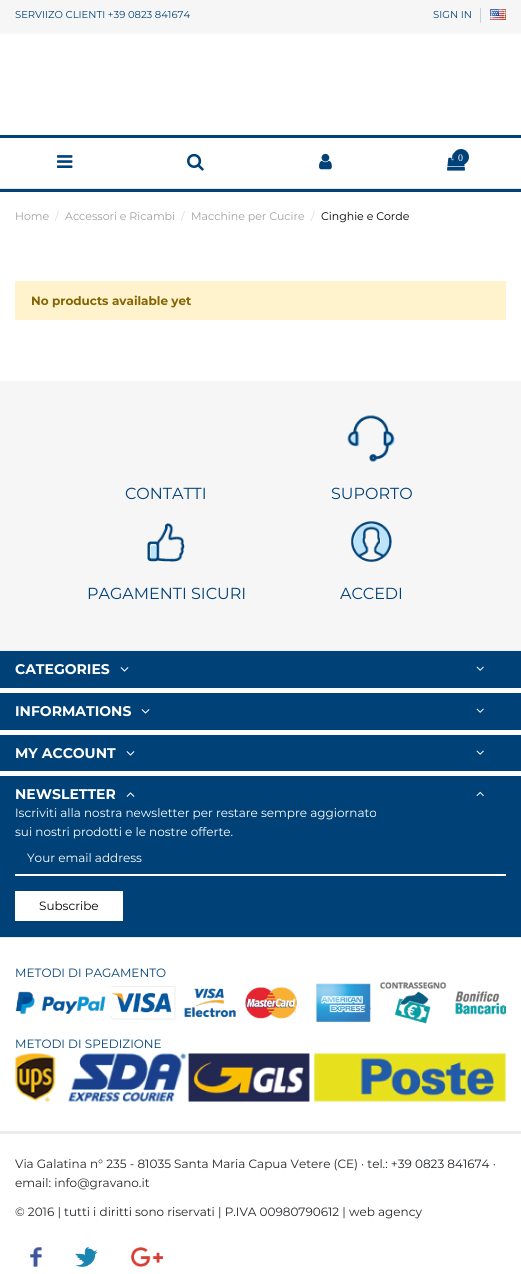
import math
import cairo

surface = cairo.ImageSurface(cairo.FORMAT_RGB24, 521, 1274)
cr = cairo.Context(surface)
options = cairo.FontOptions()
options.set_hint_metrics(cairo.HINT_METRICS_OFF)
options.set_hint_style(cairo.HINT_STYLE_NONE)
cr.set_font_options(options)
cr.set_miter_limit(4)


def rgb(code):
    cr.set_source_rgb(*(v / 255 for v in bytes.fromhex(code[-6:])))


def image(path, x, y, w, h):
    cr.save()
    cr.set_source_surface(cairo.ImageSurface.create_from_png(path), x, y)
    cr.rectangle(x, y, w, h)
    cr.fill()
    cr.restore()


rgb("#ffffff")
cr.paint()
for x, y, w, h, color in [
    (0, 189, 521, 3, "#004178"),
    (0, 0, 521, 33, "#f6f6f6"),
    (0, 33, 521, 1, "#f8f8f8"),
    (480, 8, 1, 15, "#c5d2dd"),
]:
    rgb(color)
    cr.rectangle(x, y, w, h)
    cr.fill()
image("img/1.png", 490, 9, 16, 11)
rgb("#e3e3e3")
cr.rectangle(0, 188, 521, 1)
cr.fill()
rgb("#004178")
cr.rectangle(0, 135, 521, 3)
cr.fill()
image("img/2.png", 57, 155, 16, 13)
image("img/3.png", 187, 153, 17, 18)
image("img/4.png", 319, 153, 13, 17)
image("img/5.png", 447, 152, 18, 19)
cr.arc(461, 157, 8, 0, 2 * math.pi)
cr.fill()
rgb("#fff3cd")
cr.rectangle(15, 281, 491, 39)
cr.fill()
rgb("#f6f6f6")
cr.rectangle(0, 381, 521, 269)
cr.fill()
image("img/6.png", 347, 415, 49, 47)
image("img/7.png", 147, 523, 38, 39)
image("img/8.png", 351, 521, 41, 41)
for x, y, w, h, color in [
    (0, 651, 521, 286, "#004278"),
    (0, 650, 521, 1, "#f0f0f0"),
    (0, 688, 521, 5, "#ffffff"),
]:
    rgb(color)
    cr.rectangle(x, y, w, h)
    cr.fill()
image("img/9.png", 120, 667, 9, 5)
image("img/10.png", 476, 666, 8, 5)
cr.rectangle(0, 730, 521, 5)
cr.fill()
image("img/9.png", 141, 709, 9, 5)
image("img/10.png", 476, 708, 8, 5)
cr.rectangle(0, 771, 521, 5)
cr.fill()
image("img/9.png", 126, 751, 9, 5)
image("img/10.png", 476, 750, 8, 5)
image("img/11.png", 126, 792, 9, 5)
image("img/12.png", 476, 791, 8, 5)
for x, y, w, h, color in [
    (15, 874, 491, 2, "#ffffff"),
    (15, 891, 108, 30, "#ffffff"),
    (0, 937, 521, 1, "#e8e8e8"),
    (0, 1131, 521, 3, "#ececec"),
]:
    rgb(color)
    cr.rectangle(x, y, w, h)
    cr.fill()
image("img/13.png", 15, 982, 491, 42)
image("img/14.png", 15, 1053, 491, 49)
image("img/15.png", 30, 1247, 12, 20)
image("img/16.png", 75, 1247, 23, 20)
image("img/17.png", 131, 1247, 32, 20)
cr.select_font_face("Montserrat")
cr.set_font_size(10)
rgb("#004178")
cr.move_to(15, 18)
cr.show_text("SERVIIZO CLIENTI +39 0823 841674")
cr.move_to(433, 18)
cr.show_text("SIGN IN")
cr.select_font_face("Liberation Serif")
rgb("#ffffff")
cr.move_to(458, 161)
cr.show_text("0")
cr.select_font_face("Montserrat")
cr.set_font_size(11)
rgb("#9f9f9f")
cr.move_to(15, 220)
cr.show_text("Home")
rgb("#d9d9d9")
cr.move_to(55, 220)
cr.show_text("/")
rgb("#9f9f9f")
cr.move_to(65, 220)
cr.show_text("Accessori e Ricambi")
rgb("#d9d9d9")
cr.move_to(181, 220)
cr.show_text("/")
rgb("#9f9f9f")
cr.move_to(191, 220)
cr.show_text("Macchine per Cucire")
rgb("#d9d9d9")
cr.move_to(311, 220)
cr.show_text("/")
rgb("#000000")
cr.move_to(321, 220)
cr.show_text("Cinghie e Corde")
cr.select_font_face("Montserrat", cairo.FONT_SLANT_NORMAL, cairo.FONT_WEIGHT_BOLD)
cr.set_font_size(12)
rgb("#856404")
cr.move_to(31, 305)
cr.show_text("No products available yet")
cr.select_font_face("Montserrat")
cr.set_font_size(16)
rgb("#004178")
for x, y, s in [
    (125, 499, "CONTATTI"),
    (331, 499, "SUPORTO"),
    (87, 599, "PAGAMENTI SICURI"),
    (340, 599, "ACCEDI"),
]:
    cr.move_to(x, y)
    cr.show_text(s)
cr.select_font_face("Montserrat", cairo.FONT_SLANT_NORMAL, cairo.FONT_WEIGHT_BOLD)
cr.set_font_size(14)
rgb("#ffffff")
for x, y, s in [
    (15, 674, "CATEGORIES"),
    (15, 716, "INFORMATIONS"),
    (15, 758, "MY ACCOUNT"),
    (15, 799, "NEWSLETTER"),
]:
    cr.move_to(x, y)
    cr.show_text(s)
cr.select_font_face("Montserrat")
cr.set_font_size(12)
for x, y, s in [
    (15, 817, "Iscriviti alla nostra newsletter per restare sempre aggiornato"),
    (15, 836, "sui nostri prodotti e le nostre offerte."),
    (27, 862, "Your email address"),
]:
    cr.move_to(x, y)
    cr.show_text(s)
rgb("#000000")
cr.move_to(39, 910)
cr.show_text("Subscribe")
rgb("#004178")
cr.move_to(15, 977)
cr.show_text("METODI DI PAGAMENTO")
cr.move_to(15, 1048)
cr.show_text("METODI DI SPEDIZIONE")
rgb("#212529")
for x, y, s in [
    (15, 1168, "Via Galatina n° 235 - 81035 Santa Maria Capua Vetere (CE) · tel.: +39 0823 841674 ·"),
    (15, 1187, "email: info@gravano.it"),
    (15, 1216, "© 2016 | tutti i diritti sono riservati | P.IVA 00980790612 | web agency"),
]:
    cr.move_to(x, y)
    cr.show_text(s)
surface.write_to_png("page.png")
